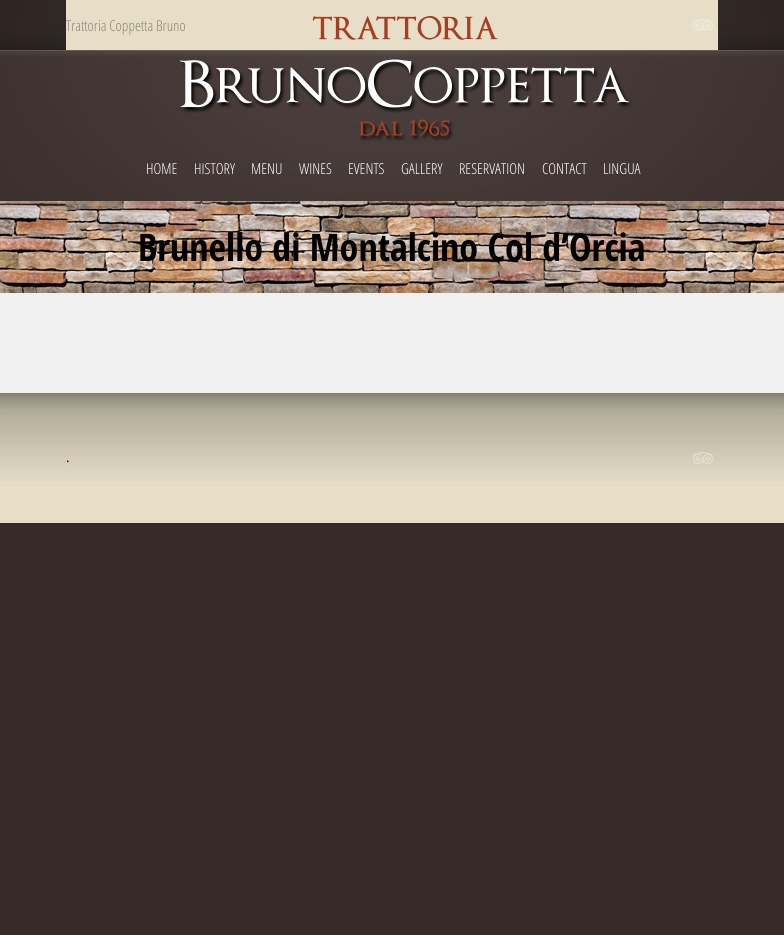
import math
import cairo

surface = cairo.ImageSurface(cairo.FORMAT_RGB24, 784, 935)
cr = cairo.Context(surface)
options = cairo.FontOptions()
options.set_hint_metrics(cairo.HINT_METRICS_OFF)
options.set_hint_style(cairo.HINT_STYLE_NONE)
cr.set_font_options(options)
cr.set_miter_limit(4)


def rgb(code):
    cr.set_source_rgb(*(v / 255 for v in bytes.fromhex(code[-6:])))


def rrect(x, y, w, h, r):
    cr.new_sub_path()
    for i, (u, v) in enumerate([(x + w - r, y + h - r), (x + r, y + h - r), (x + r, y + r), (x + w - r, y + r)]):
        cr.arc(u, v, r, i * math.pi / 2, (i + 1) * math.pi / 2)
    cr.close_path()


def soft_shadow(x, y, w, h, r, blur, alpha):
    cr.push_group_with_content(cairo.CONTENT_ALPHA)
    cr.set_operator(cairo.OPERATOR_SOURCE)
    for i in range(15, -16, -2):
        e = blur * i / 6
        if min(w, h) + 2 * e > 0:
            cr.set_source_rgba(0, 0, 0, alpha * math.erfc((i - 1) / 8.5) / 2)
            rrect(x - e, y - e, w + 2 * e, h + 2 * e, max(0, min(r + e + blur * .6, min(w, h) / 2 + e)))
            cr.fill()
    cr.mask(cr.pop_group())


def image(path, x, y, w, h):
    cr.save()
    cr.set_source_surface(cairo.ImageSurface.create_from_png(path), x, y)
    cr.rectangle(x, y, w, h)
    cr.fill()
    cr.restore()


rgb("#372b28")
cr.paint()
image("img/5.png", 0, 201, 784, 92)
cr.save()
cr.rectangle(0, 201, 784, 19)
cr.clip()
rgb("#000000")
soft_shadow(0, 5, 784, 201, 0, 10, 0.25)
cr.restore()
image("img/1.png", 0, 0, 784, 201)
image("img/2.png", 0, 0, 784, 50)
rgb("#e6dec7")
cr.rectangle(66, 0, 652, 50)
cr.fill()
image("img/3.png", 693, 19, 20, 12)
image("img/4.png", 180, 16, 452, 125)
cr.set_source_rgba(1, 1, 1, 0.1)
cr.rectangle(0, 201, 784, 5)
cr.fill()
rgb("#e6dec7")
cr.rectangle(0, 393, 784, 130)
cr.fill()
image("img/6.png", 0, 393, 784, 88)
rgb("#000000")
soft_shadow(0, 288, 784, 100, 0, 10, 0.25)
rgb("#f0f0f0")
cr.rectangle(0, 293, 784, 100)
cr.fill()
image("img/7.png", 66, 465, 3, 1)
image("img/8.png", 693, 452, 20, 12)
cr.select_font_face("Open Sans Light")
cr.set_font_size(15)
rgb("#8a8577")
cr.move_to(66, 31)
cr.show_text("Trattoria Coppetta Bruno")
rgb("#ffffff")
for x, y, s in [
    (146, 174, "HOME"),
    (194, 174, "HISTORY"),
    (251, 174, "MENU"),
    (299, 174, "WINES"),
    (348, 174, "EVENTS"),
    (401, 174, "GALLERY"),
    (459, 174, "RESERVATION"),
    (542, 174, "CONTACT"),
    (603, 174, "LINGUA"),
]:
    cr.move_to(x, y)
    cr.show_text(s)
cr.select_font_face("Open Sans Condensed", cairo.FONT_SLANT_NORMAL, cairo.FONT_WEIGHT_BOLD)
cr.set_font_size(38)
rgb("#000000")
cr.move_to(138, 261)
cr.show_text("Brunello di Montalcino Col d’Orcia")
cr.select_font_face("Open Sans")
cr.set_font_size(13)
cr.move_to(66, 462)
cr.show_text(".")
surface.write_to_png("page.png")
